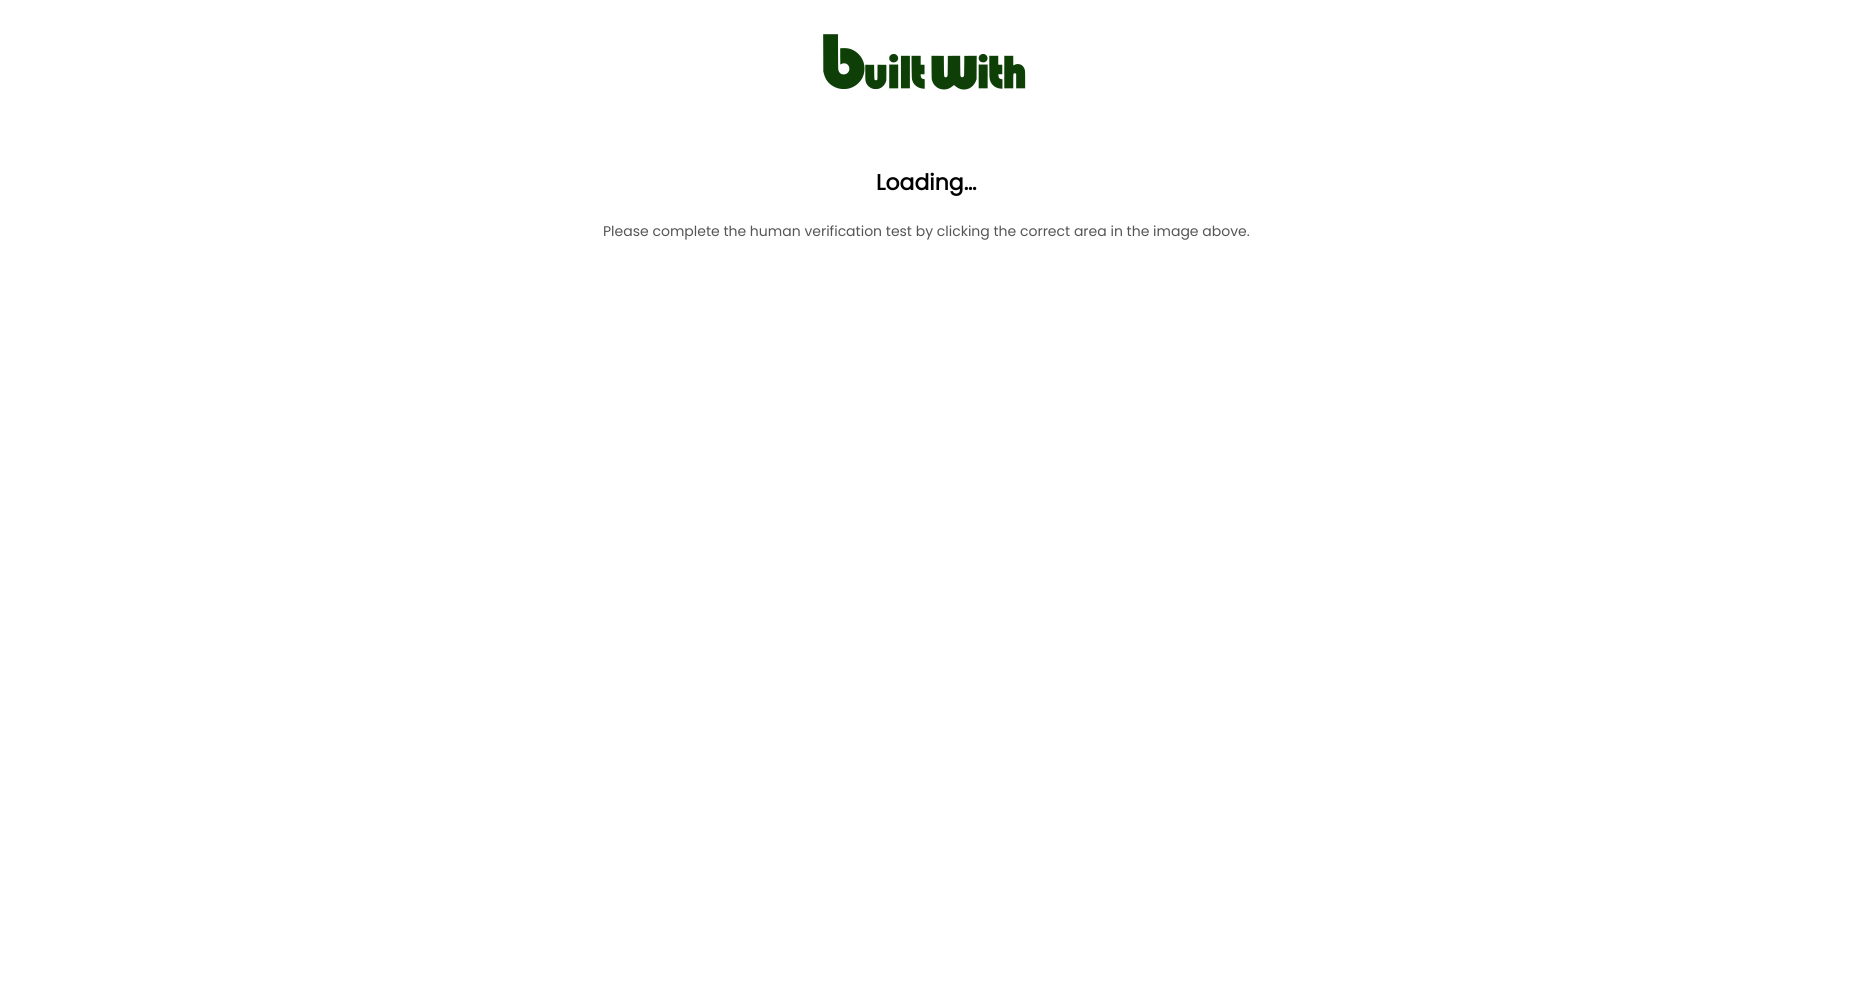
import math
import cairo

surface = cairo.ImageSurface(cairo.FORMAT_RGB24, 1853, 998)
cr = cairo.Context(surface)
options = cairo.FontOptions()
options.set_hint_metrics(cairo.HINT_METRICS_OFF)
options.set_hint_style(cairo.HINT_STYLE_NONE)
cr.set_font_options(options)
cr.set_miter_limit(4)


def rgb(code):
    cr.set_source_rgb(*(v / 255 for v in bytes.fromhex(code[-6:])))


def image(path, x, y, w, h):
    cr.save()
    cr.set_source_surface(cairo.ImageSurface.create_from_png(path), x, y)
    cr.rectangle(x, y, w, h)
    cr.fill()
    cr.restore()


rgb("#ffffff")
cr.paint()
image("img/1.png", 823, 34, 203, 56)
cr.select_font_face("Poppins", cairo.FONT_SLANT_NORMAL, cairo.FONT_WEIGHT_BOLD)
cr.set_font_size(22)
rgb("#000000")
cr.move_to(876, 190)
cr.show_text("Loading…")
cr.select_font_face("Poppins")
cr.set_font_size(14)
rgb("#555555")
cr.move_to(603, 236)
cr.show_text("Please complete the human verification test by clicking the correct area in the image above.")
surface.write_to_png("page.png")
